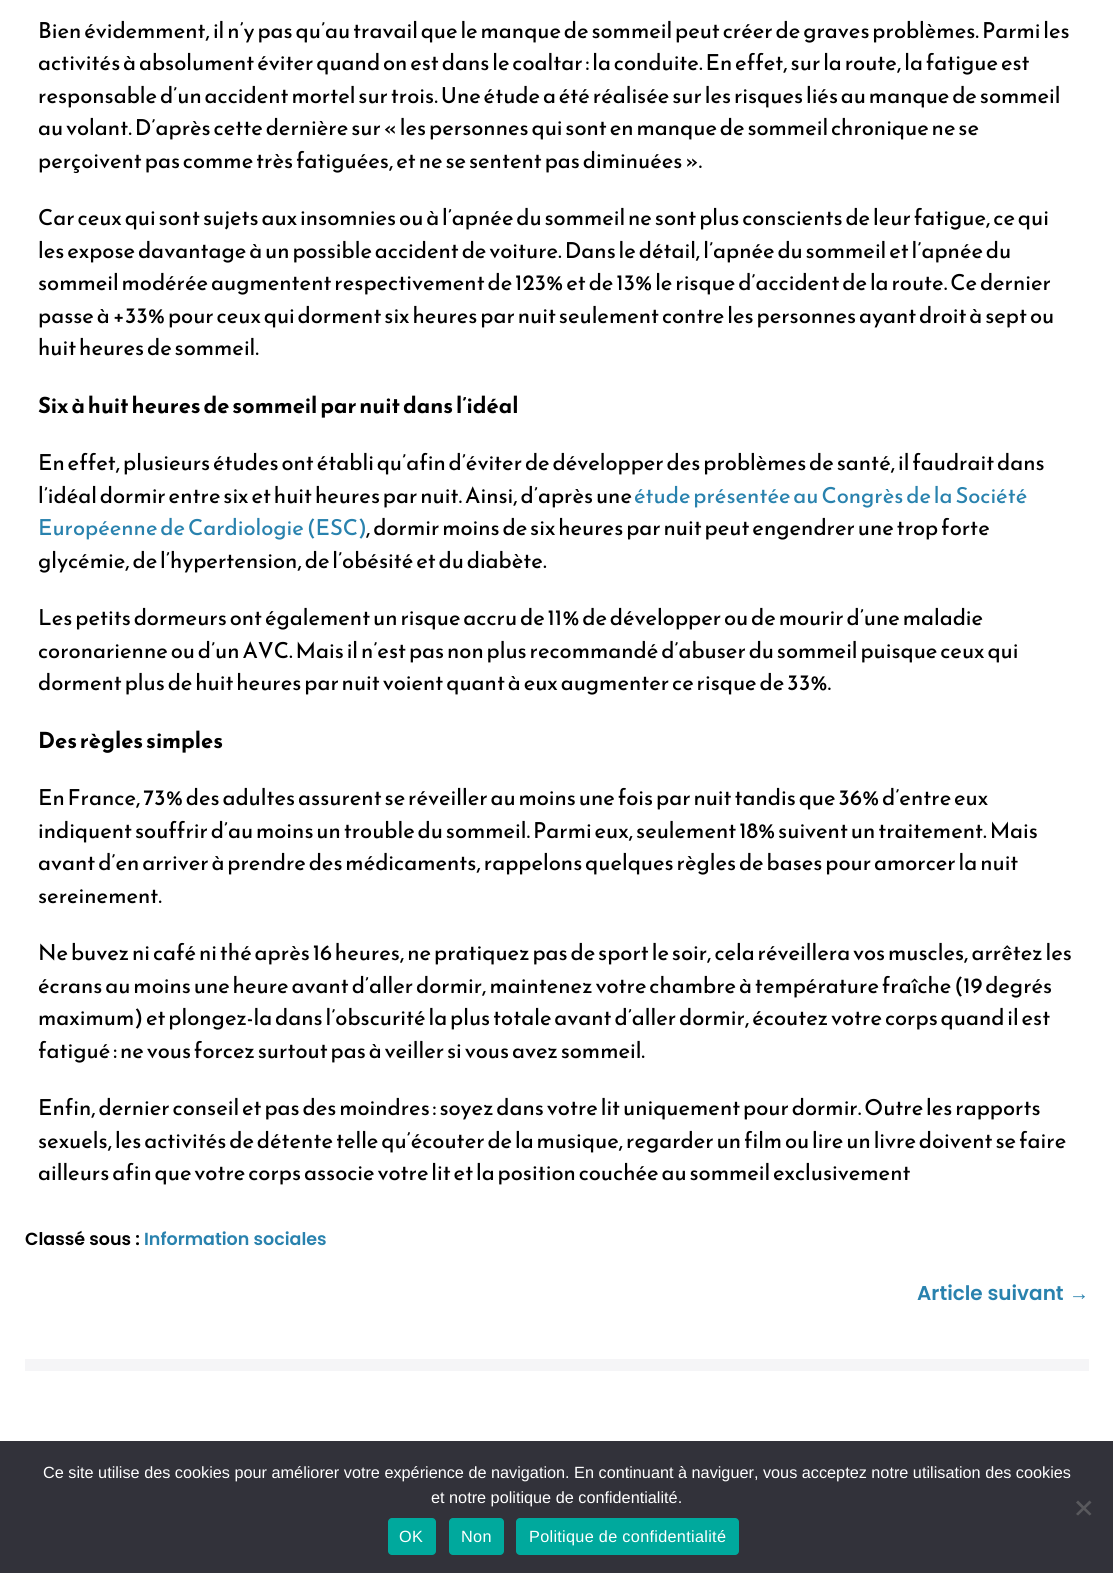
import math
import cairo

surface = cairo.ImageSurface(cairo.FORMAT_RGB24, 1113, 1573)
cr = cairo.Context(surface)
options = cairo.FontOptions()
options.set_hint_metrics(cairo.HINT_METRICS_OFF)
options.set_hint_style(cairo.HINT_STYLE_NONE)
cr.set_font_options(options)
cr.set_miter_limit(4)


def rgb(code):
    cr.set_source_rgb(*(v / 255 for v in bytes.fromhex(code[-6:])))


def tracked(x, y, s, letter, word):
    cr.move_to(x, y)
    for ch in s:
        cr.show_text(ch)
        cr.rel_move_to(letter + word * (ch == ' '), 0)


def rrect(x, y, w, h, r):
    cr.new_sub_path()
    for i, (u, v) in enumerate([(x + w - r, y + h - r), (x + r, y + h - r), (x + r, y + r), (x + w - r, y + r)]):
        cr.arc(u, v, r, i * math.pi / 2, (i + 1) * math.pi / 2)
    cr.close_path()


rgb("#ffffff")
cr.paint()
rgb("#f5f5f7")
cr.rectangle(25, 1359, 1064, 12)
cr.fill()
rgb("#32323a")
cr.rectangle(0, 1441, 1113, 132)
cr.fill()
rgb("#59595d")
cr.new_path()
cr.move_to(1089.5, 1500.5)
cr.line_to(1091.5, 1502.5)
cr.line_to(1078, 1515.5)
cr.line_to(1076, 1514)
cr.close_path()
cr.fill()
cr.new_path()
cr.move_to(1076, 1502.5)
cr.line_to(1078, 1500.5)
cr.line_to(1091.5, 1514)
cr.line_to(1089.5, 1515.5)
cr.close_path()
cr.fill()
rgb("#00a99d")
rrect(388, 1518, 48, 37, 4)
cr.fill()
rrect(449, 1518, 55, 37, 4)
cr.fill()
rrect(516, 1518, 223, 37, 4)
cr.fill()
cr.select_font_face("Reem Kufi")
cr.set_font_size(22)
rgb("#000000")
for x, y, s in [
    (38, 38, "Bien évidemment, il n’y pas qu’au travail que le manque de sommeil peut créer de graves problèmes. Parmi les"),
    (38, 70, "activités à absolument éviter quand on est dans le coaltar : la conduite. En effet, sur la route, la fatigue est"),
    (38, 103, "responsable d’un accident mortel sur trois. Une étude a été réalisée sur les risques liés au manque de sommeil"),
    (38, 135, "au volant. D’après cette dernière sur « les personnes qui sont en manque de sommeil chronique ne se"),
    (38, 168, "perçoivent pas comme très fatiguées, et ne se sentent pas diminuées »."),
    (38, 225, "Car ceux qui sont sujets aux insomnies ou à l’apnée du sommeil ne sont plus conscients de leur fatigue, ce qui"),
    (38, 258, "les expose davantage à un possible accident de voiture. Dans le détail, l’apnée du sommeil et l’apnée du"),
    (38, 290, "sommeil modérée augmentent respectivement de 123% et de 13% le risque d’accident de la route. Ce dernier"),
    (38, 323, "passe à +33% pour ceux qui dorment six heures par nuit seulement contre les personnes ayant droit à sept ou"),
    (38, 355, "huit heures de sommeil."),
]:
    cr.move_to(x, y)
    cr.show_text(s)
cr.select_font_face("Reem Kufi", cairo.FONT_SLANT_NORMAL, cairo.FONT_WEIGHT_BOLD)
cr.move_to(38, 413)
cr.show_text("Six à huit heures de sommeil par nuit dans l’idéal")
cr.select_font_face("Reem Kufi")
cr.move_to(38, 470)
cr.show_text("En effet, plusieurs études ont établi qu’afin d’éviter de développer des problèmes de santé, il faudrait dans")
cr.move_to(38, 503)
cr.show_text("l’idéal dormir entre six et huit heures par nuit. Ainsi, d’après une")
rgb("#2982ae")
cr.move_to(634, 503)
cr.show_text("étude présentée au Congrès de la Société")
cr.move_to(38, 535)
cr.show_text("Européenne de Cardiologie (ESC)")
rgb("#000000")
for x, y, s in [
    (366, 535, ", dormir moins de six heures par nuit peut engendrer une trop forte"),
    (38, 568, "glycémie, de l’hypertension, de l’obésité et du diabète."),
    (38, 625, "Les petits dormeurs ont également un risque accru de 11% de développer ou de mourir d’une maladie"),
    (38, 658, "coronarienne ou d’un AVC. Mais il n’est pas non plus recommandé d’abuser du sommeil puisque ceux qui"),
    (38, 690, "dorment plus de huit heures par nuit voient quant à eux augmenter ce risque de 33%."),
]:
    cr.move_to(x, y)
    cr.show_text(s)
cr.select_font_face("Reem Kufi", cairo.FONT_SLANT_NORMAL, cairo.FONT_WEIGHT_BOLD)
cr.move_to(38, 748)
cr.show_text("Des règles simples")
cr.select_font_face("Reem Kufi")
for x, y, s in [
    (38, 805, "En France, 73% des adultes assurent se réveiller au moins une fois par nuit tandis que 36% d’entre eux"),
    (38, 838, "indiquent souffrir d’au moins un trouble du sommeil. Parmi eux, seulement 18% suivent un traitement. Mais"),
    (38, 870, "avant d’en arriver à prendre des médicaments, rappelons quelques règles de bases pour amorcer la nuit"),
    (38, 903, "sereinement."),
    (38, 960, "Ne buvez ni café ni thé après 16 heures, ne pratiquez pas de sport le soir, cela réveillera vos muscles, arrêtez les"),
    (38, 993, "écrans au moins une heure avant d’aller dormir, maintenez votre chambre à température fraîche (19 degrés"),
    (38, 1025, "maximum) et plongez-la dans l’obscurité la plus totale avant d’aller dormir, écoutez votre corps quand il est"),
    (38, 1058, "fatigué : ne vous forcez surtout pas à veiller si vous avez sommeil."),
    (38, 1115, "Enfin, dernier conseil et pas des moindres : soyez dans votre lit uniquement pour dormir. Outre les rapports"),
    (38, 1148, "sexuels, les activités de détente telle qu’écouter de la musique, regarder un film ou lire un livre doivent se faire"),
    (38, 1180, "ailleurs afin que votre corps associe votre lit et la position couchée au sommeil exclusivement"),
]:
    cr.move_to(x, y)
    cr.show_text(s)
cr.select_font_face("Poppins SemiBold")
cr.set_font_size(17.5)
cr.move_to(25, 1245)
cr.show_text("Classé sous :")
rgb("#2982ae")
cr.move_to(144, 1245)
cr.show_text("Information sociales")
cr.set_font_size(20)
cr.move_to(917, 1300)
cr.show_text("Article suivant")
cr.select_font_face("Liberation Sans", cairo.FONT_SLANT_NORMAL, cairo.FONT_WEIGHT_BOLD)
cr.move_to(1069, 1300)
cr.show_text("→")
cr.select_font_face("Liberation Sans")
cr.set_font_size(16.25)
rgb("#ffffff")
cr.move_to(43, 1478)
cr.show_text("Ce site utilise des cookies pour améliorer votre expérience de navigation. En continuant à naviguer, vous acceptez notre utilisation des cookies")
cr.move_to(431, 1503)
cr.show_text("et notre politique de confidentialité.")
for x, y, s in [
    (399, 1542, "OK"),
    (461, 1542, "Non"),
    (529, 1542, "Politique de confidentialité"),
]:
    tracked(x, y, s, 0.3, 0)
surface.write_to_png("page.png")
